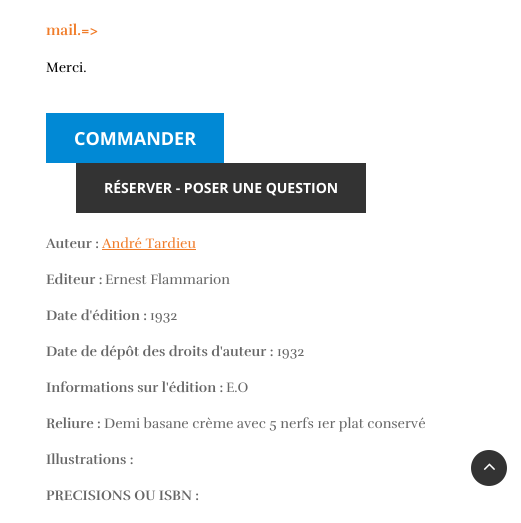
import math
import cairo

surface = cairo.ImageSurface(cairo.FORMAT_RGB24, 521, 523)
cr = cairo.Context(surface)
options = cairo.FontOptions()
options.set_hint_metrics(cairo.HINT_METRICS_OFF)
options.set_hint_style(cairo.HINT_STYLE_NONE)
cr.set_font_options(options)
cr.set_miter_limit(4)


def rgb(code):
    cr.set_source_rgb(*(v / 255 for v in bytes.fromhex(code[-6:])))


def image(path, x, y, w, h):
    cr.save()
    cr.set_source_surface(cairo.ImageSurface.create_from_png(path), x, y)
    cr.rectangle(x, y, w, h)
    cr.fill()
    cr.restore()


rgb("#ffffff")
cr.paint()
for x, y, w, h, color in [
    (46, 113, 178, 50, "#0189d5"),
    (76, 163, 290, 50, "#333333"),
    (102, 249, 94, 1, "#f07c29"),
]:
    rgb(color)
    cr.rectangle(x, y, w, h)
    cr.fill()
rgb("#333333")
cr.arc(489, 468, 19, 0, 2 * math.pi)
cr.fill_preserve()
rgb("#ffffff")
cr.stroke()
image("img/1.png", 483, 463, 12, 7)
cr.select_font_face("Rufina", cairo.FONT_SLANT_NORMAL, cairo.FONT_WEIGHT_BOLD)
cr.set_font_size(15)
rgb("#f07c29")
cr.move_to(46, 35)
cr.show_text("mail.=>")
cr.select_font_face("Rufina")
cr.set_font_size(14)
rgb("#000000")
cr.move_to(46, 72)
cr.show_text("Merci.")
cr.select_font_face("Open Sans", cairo.FONT_SLANT_NORMAL, cairo.FONT_WEIGHT_BOLD)
cr.set_font_size(18)
rgb("#ffffff")
cr.move_to(74, 145)
cr.show_text("COMMANDER")
cr.set_font_size(14)
cr.move_to(104, 193)
cr.show_text("RÉSERVER - POSER UNE QUESTION")
cr.select_font_face("Rufina", cairo.FONT_SLANT_NORMAL, cairo.FONT_WEIGHT_BOLD)
rgb("#666666")
cr.move_to(46, 248)
cr.show_text("Auteur :")
cr.select_font_face("Rufina")
rgb("#f07c29")
cr.move_to(102, 248)
cr.show_text("André Tardieu")
cr.select_font_face("Rufina", cairo.FONT_SLANT_NORMAL, cairo.FONT_WEIGHT_BOLD)
rgb("#666666")
cr.move_to(46, 284)
cr.show_text("Editeur :")
cr.select_font_face("Rufina")
cr.move_to(105, 284)
cr.show_text("Ernest Flammarion")
cr.select_font_face("Rufina", cairo.FONT_SLANT_NORMAL, cairo.FONT_WEIGHT_BOLD)
cr.move_to(46, 320)
cr.show_text("Date d'édition :")
cr.select_font_face("Rufina")
cr.move_to(150, 320)
cr.show_text("1932")
cr.select_font_face("Rufina", cairo.FONT_SLANT_NORMAL, cairo.FONT_WEIGHT_BOLD)
cr.move_to(46, 356)
cr.show_text("Date de dépôt des droits d'auteur :")
cr.select_font_face("Rufina")
cr.move_to(277, 356)
cr.show_text("1932")
cr.select_font_face("Rufina", cairo.FONT_SLANT_NORMAL, cairo.FONT_WEIGHT_BOLD)
cr.move_to(46, 392)
cr.show_text("Informations sur l'édition :")
cr.select_font_face("Rufina")
cr.move_to(226, 392)
cr.show_text("E.O")
cr.select_font_face("Rufina", cairo.FONT_SLANT_NORMAL, cairo.FONT_WEIGHT_BOLD)
cr.move_to(46, 428)
cr.show_text("Reliure :")
cr.select_font_face("Rufina")
cr.move_to(104, 428)
cr.show_text("Demi basane crème avec 5 nerfs 1er plat conservé")
cr.select_font_face("Rufina", cairo.FONT_SLANT_NORMAL, cairo.FONT_WEIGHT_BOLD)
cr.move_to(46, 464)
cr.show_text("Illustrations :")
cr.move_to(46, 500)
cr.show_text("PRECISIONS OU ISBN :")
surface.write_to_png("page.png")
